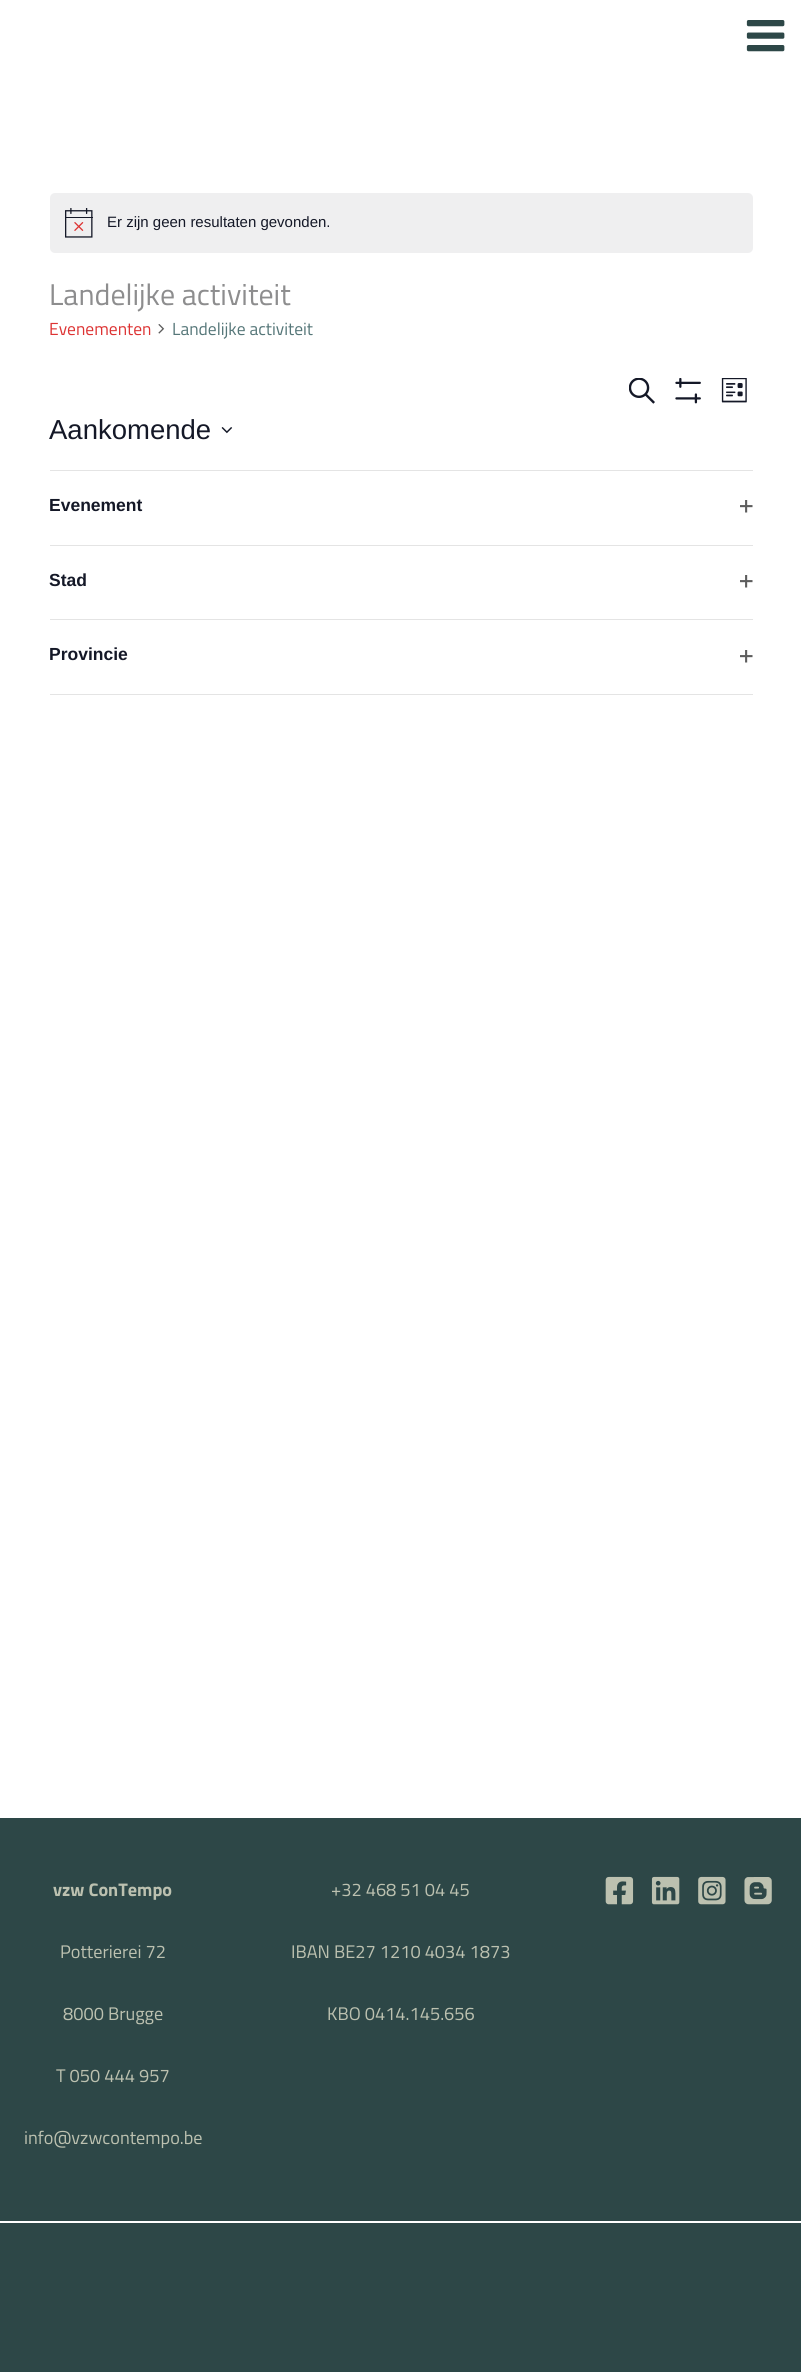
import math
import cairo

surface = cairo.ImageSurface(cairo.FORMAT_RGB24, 801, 2372)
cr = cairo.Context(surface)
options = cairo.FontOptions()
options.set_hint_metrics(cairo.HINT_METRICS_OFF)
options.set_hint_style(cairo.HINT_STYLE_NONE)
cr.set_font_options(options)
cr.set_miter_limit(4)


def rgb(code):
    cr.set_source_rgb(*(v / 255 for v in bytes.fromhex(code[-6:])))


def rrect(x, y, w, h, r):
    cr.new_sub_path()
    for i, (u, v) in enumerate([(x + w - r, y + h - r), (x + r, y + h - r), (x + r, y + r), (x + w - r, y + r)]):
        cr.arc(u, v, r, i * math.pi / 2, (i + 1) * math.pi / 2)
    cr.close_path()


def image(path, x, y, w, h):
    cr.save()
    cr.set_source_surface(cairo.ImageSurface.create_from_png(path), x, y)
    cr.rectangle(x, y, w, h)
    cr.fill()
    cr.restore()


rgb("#ffffff")
cr.paint()
image("img/1.png", 746, 20, 39, 32)
rgb("#efeff0")
rrect(50, 193, 703, 60, 5)
cr.fill()
image("img/2.png", 65, 208, 28, 30)
image("img/3.png", 158, 324, 7, 10)
image("img/4.png", 629, 378, 26, 26)
image("img/5.png", 675, 378, 26, 26)
image("img/6.png", 721, 378, 26, 25)
image("img/7.png", 221, 427, 12, 7)
rgb("#e4e4e4")
cr.rectangle(50, 694, 703, 1)
cr.fill()
cr.rectangle(50, 470, 703, 1)
cr.fill()
image("img/8.png", 740, 500, 13, 13)
cr.rectangle(50, 545, 703, 1)
cr.fill()
image("img/8.png", 740, 575, 13, 13)
cr.rectangle(50, 619, 703, 1)
cr.fill()
image("img/8.png", 740, 650, 13, 13)
rgb("#2d4747")
cr.rectangle(0, 1818, 801, 403)
cr.fill()
image("img/9.png", 605, 1876, 29, 29)
image("img/10.png", 651, 1876, 29, 29)
image("img/11.png", 698, 1876, 28, 29)
image("img/12.png", 744, 1877, 28, 28)
cr.rectangle(0, 2223, 801, 149)
cr.fill()
cr.select_font_face("Liberation Sans")
cr.set_font_size(15)
rgb("#141827")
cr.move_to(107, 227)
cr.show_text("Er zijn geen resultaten gevonden.")
cr.select_font_face("Titillium Web")
cr.set_font_size(30)
rgb("#8d8d8e")
cr.move_to(49, 305)
cr.show_text("Landelijke activiteit")
cr.set_font_size(17.5)
rgb("#dd3333")
cr.move_to(49, 335)
cr.show_text("Evenementen")
rgb("#557678")
cr.move_to(172, 335)
cr.show_text("Landelijke activiteit")
cr.select_font_face("Liberation Sans")
cr.set_font_size(27.5)
rgb("#141827")
cr.move_to(49, 439)
cr.show_text("Aankomende")
cr.select_font_face("Liberation Sans", cairo.FONT_SLANT_NORMAL, cairo.FONT_WEIGHT_BOLD)
cr.set_font_size(17.5)
for x, y, s in [
    (49, 511, "Evenement"),
    (49, 586, "Stad"),
    (49, 660, "Provincie"),
]:
    cr.move_to(x, y)
    cr.show_text(s)
cr.select_font_face("Titillium Web", cairo.FONT_SLANT_NORMAL, cairo.FONT_WEIGHT_BOLD)
cr.set_font_size(18.25)
rgb("#bcc1b0")
cr.move_to(53, 1896)
cr.show_text("vzw ConTempo")
cr.select_font_face("Titillium Web")
for x, y, s in [
    (60, 1958, "Potterierei 72"),
    (63, 2020, "8000 Brugge"),
    (56, 2082, "T 050 444 957"),
    (24, 2144, "info@vzwcontempo.be"),
    (331, 1896, "+32 468 51 04 45"),
    (291, 1958, "IBAN BE27 1210 4034 1873"),
    (327, 2020, "KBO 0414.145.656"),
]:
    cr.move_to(x, y)
    cr.show_text(s)
surface.write_to_png("page.png")
